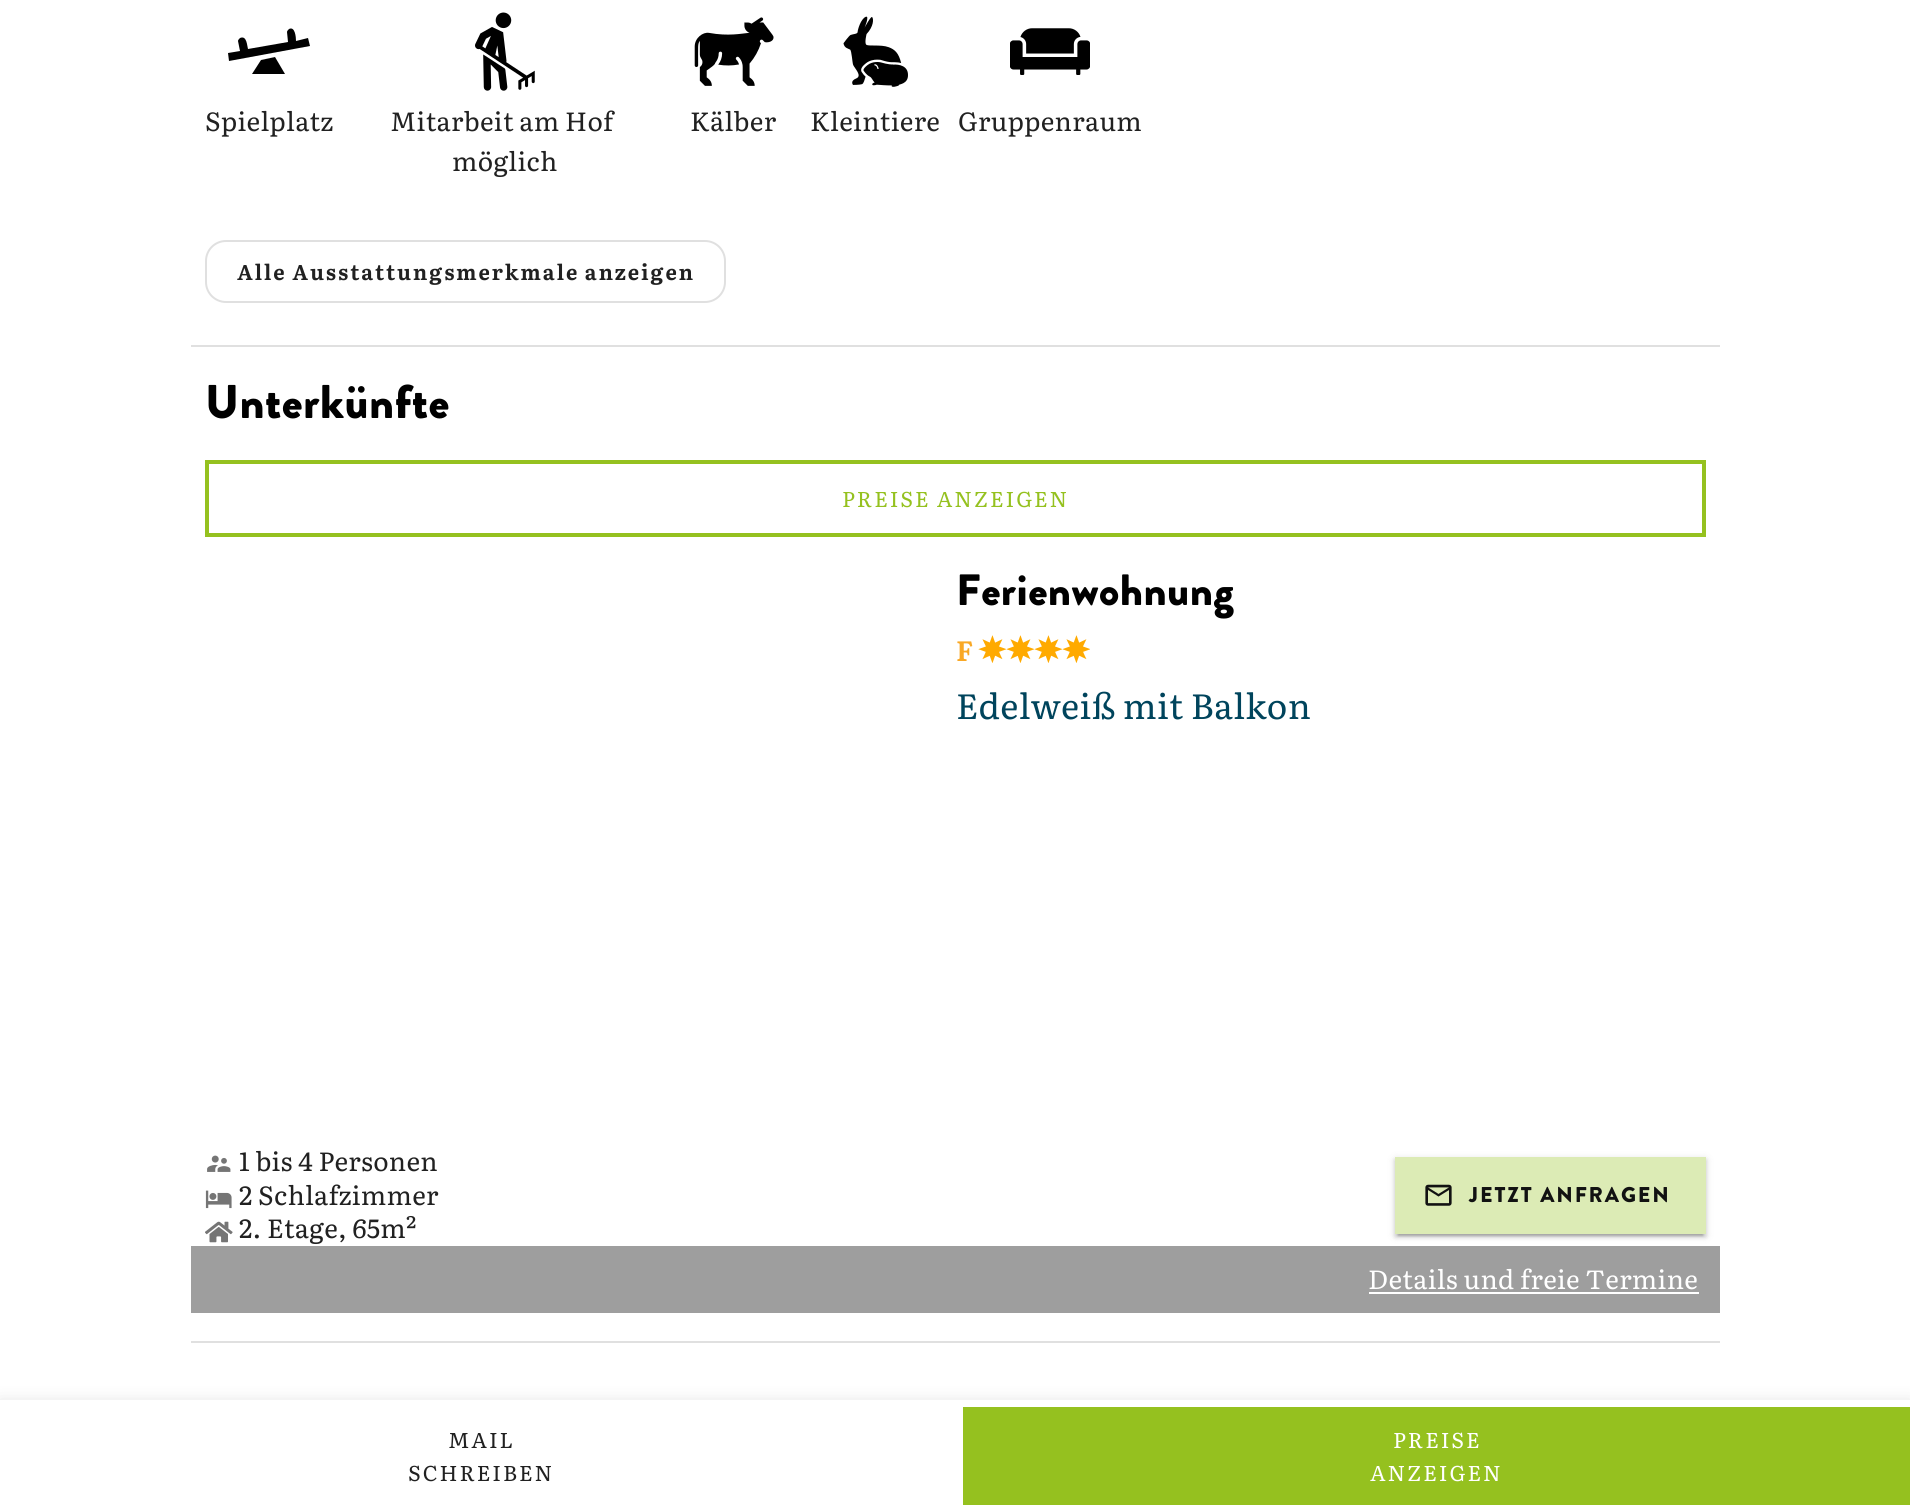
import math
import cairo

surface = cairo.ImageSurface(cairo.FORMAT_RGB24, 1910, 1512)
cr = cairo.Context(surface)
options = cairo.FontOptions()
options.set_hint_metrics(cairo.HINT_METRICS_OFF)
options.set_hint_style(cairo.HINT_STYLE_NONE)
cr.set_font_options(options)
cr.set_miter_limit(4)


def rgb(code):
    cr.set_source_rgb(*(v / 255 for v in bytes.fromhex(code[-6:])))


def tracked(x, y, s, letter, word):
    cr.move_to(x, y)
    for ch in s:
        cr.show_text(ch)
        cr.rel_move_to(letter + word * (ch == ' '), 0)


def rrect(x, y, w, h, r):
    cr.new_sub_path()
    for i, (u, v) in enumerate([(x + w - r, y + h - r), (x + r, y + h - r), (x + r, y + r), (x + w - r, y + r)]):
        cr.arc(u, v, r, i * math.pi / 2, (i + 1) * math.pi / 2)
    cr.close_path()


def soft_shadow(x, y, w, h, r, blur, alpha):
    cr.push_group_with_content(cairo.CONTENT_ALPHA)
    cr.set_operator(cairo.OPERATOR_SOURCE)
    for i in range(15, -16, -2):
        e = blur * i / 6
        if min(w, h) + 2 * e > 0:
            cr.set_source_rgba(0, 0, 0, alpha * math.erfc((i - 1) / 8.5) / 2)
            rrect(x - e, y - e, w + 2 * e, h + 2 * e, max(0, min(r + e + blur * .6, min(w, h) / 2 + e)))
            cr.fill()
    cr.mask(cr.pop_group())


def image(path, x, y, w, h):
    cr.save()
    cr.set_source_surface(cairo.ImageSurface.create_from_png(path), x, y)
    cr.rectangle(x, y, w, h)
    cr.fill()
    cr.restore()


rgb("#ffffff")
cr.paint()
rgb("#000000")
cr.new_path()
cr.move_to(308, 38)
cr.line_to(310, 46)
cr.line_to(229, 61)
cr.line_to(228, 53)
cr.line_to(240, 51)
cr.line_to(238, 41)
cr.curve_to(238, 40, 239, 39, 240, 38)
cr.curve_to(247, 35, 247, 46, 248, 49)
cr.line_to(288, 42)
cr.line_to(287, 32)
cr.curve_to(287, 31, 288, 30, 289, 29)
cr.curve_to(295, 26, 296, 37, 296, 41)
cr.line_to(308, 38)
cr.move_to(261, 60)
cr.line_to(252, 74)
cr.line_to(285, 74)
cr.line_to(275, 57)
cr.close_path()
cr.fill()
image("img/1.png", 475, 12, 60, 79)
image("img/2.png", 694, 17, 80, 69)
image("img/3.png", 843, 16, 65, 71)
image("img/4.png", 1010, 28, 80, 47)
rrect(206, 241, 519, 61, 20)
rgb("#e0e0e0")
cr.stroke()
cr.rectangle(191, 345, 1529, 2)
cr.fill()
cr.rectangle(207, 462, 1497, 73)
rgb("#95c11f")
cr.set_line_width(4)
cr.stroke()
image("img/5.png", 978, 635, 28, 28)
image("img/5.png", 1006, 635, 28, 28)
image("img/5.png", 1034, 635, 28, 28)
image("img/5.png", 1062, 635, 28, 28)
image("img/6.png", 207, 1155, 24, 17)
image("img/7.png", 205, 1190, 27, 19)
image("img/8.png", 205, 1221, 28, 22)
rgb("#9e9e9e")
cr.rectangle(191, 1246, 1529, 67)
cr.fill()
rgb("#000000")
soft_shadow(1395, 1159, 311, 77, 0, 4.5, 0.12)
soft_shadow(1395, 1160, 311, 77, 0, 2, 0.14)
soft_shadow(1398, 1166, 305, 70, 0, 1, 0.2)
rgb("#dcebb5")
cr.rectangle(1395, 1157, 311, 77)
cr.fill()
image("img/9.png", 1425, 1184, 27, 22)
rgb("#ffffff")
cr.rectangle(1369, 1292, 330, 2)
cr.fill()
rgb("#e0e0e0")
cr.rectangle(191, 1341, 1529, 2)
cr.fill()
rgb("#000000")
soft_shadow(0, 1402, 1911, 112, 0, 9, 0.12)
rgb("#ffffff")
cr.rectangle(0, 1400, 1910, 112)
cr.fill()
rgb("#95c11f")
cr.rectangle(963, 1407, 947, 98)
cr.fill()
cr.select_font_face("Literata")
cr.set_font_size(26.25)
rgb("#212121")
for x, y, s in [
    (205, 131, "Spielplatz"),
    (390, 131, "Mitarbeit am Hof"),
    (452, 171, "möglich"),
    (690, 131, "Kälber"),
    (810, 131, "Kleintiere"),
    (958, 131, "Gruppenraum"),
]:
    tracked(x, y, s, 0.3, 0)
cr.select_font_face("Literata", cairo.FONT_SLANT_NORMAL, cairo.FONT_WEIGHT_BOLD)
cr.set_font_size(21.4)
tracked(237, 280, "Alle Ausstattungsmerkmale anzeigen", 1.9, 0)
cr.select_font_face("Brandon Grotesque Black")
cr.set_font_size(47.25)
rgb("#000000")
tracked(205, 418, "Unterkünfte", 0.5, 0)
cr.select_font_face("Literata")
cr.set_font_size(21.4)
rgb("#95c11f")
tracked(842, 507, "PREISE ANZEIGEN", 1.9, 0)
cr.select_font_face("Brandon Grotesque Black")
cr.set_font_size(43.75)
rgb("#000000")
tracked(956, 605, "Ferienwohnung", 0.5, 0)
cr.select_font_face("Literata", cairo.FONT_SLANT_NORMAL, cairo.FONT_WEIGHT_BOLD)
cr.set_font_size(28)
rgb("#f9a825")
tracked(956, 661, "F", 0.3, 0)
cr.select_font_face("Literata")
cr.set_font_size(35)
rgb("#00445c")
tracked(956, 719, "Edelweiß mit Balkon", 0.3, 0)
cr.set_font_size(26.25)
rgb("#212121")
for x, y, s in [
    (239, 1171, "1 bis 4 Personen"),
    (239, 1205, "2 Schlafzimmer"),
    (239, 1238, "2. Etage, 65m²"),
]:
    tracked(x, y, s, 0.25, 0)
cr.select_font_face("Brandon Grotesque Black")
cr.set_font_size(21.4)
rgb("#121212")
tracked(1469, 1202, "JETZT ANFRAGEN", 1.9, 0)
cr.select_font_face("Literata")
cr.set_font_size(26.25)
rgb("#ffffff")
tracked(1368, 1289, "Details und freie Termine", 0.3, 0)
cr.set_font_size(21.4)
rgb("#212121")
tracked(448, 1448, "MAIL", 1.9, 0)
tracked(408, 1481, "SCHREIBEN", 1.9, 0)
rgb("#ffffff")
tracked(1393, 1448, "PREISE", 1.9, 0)
tracked(1370, 1481, "ANZEIGEN", 1.9, 0)
surface.write_to_png("page.png")
